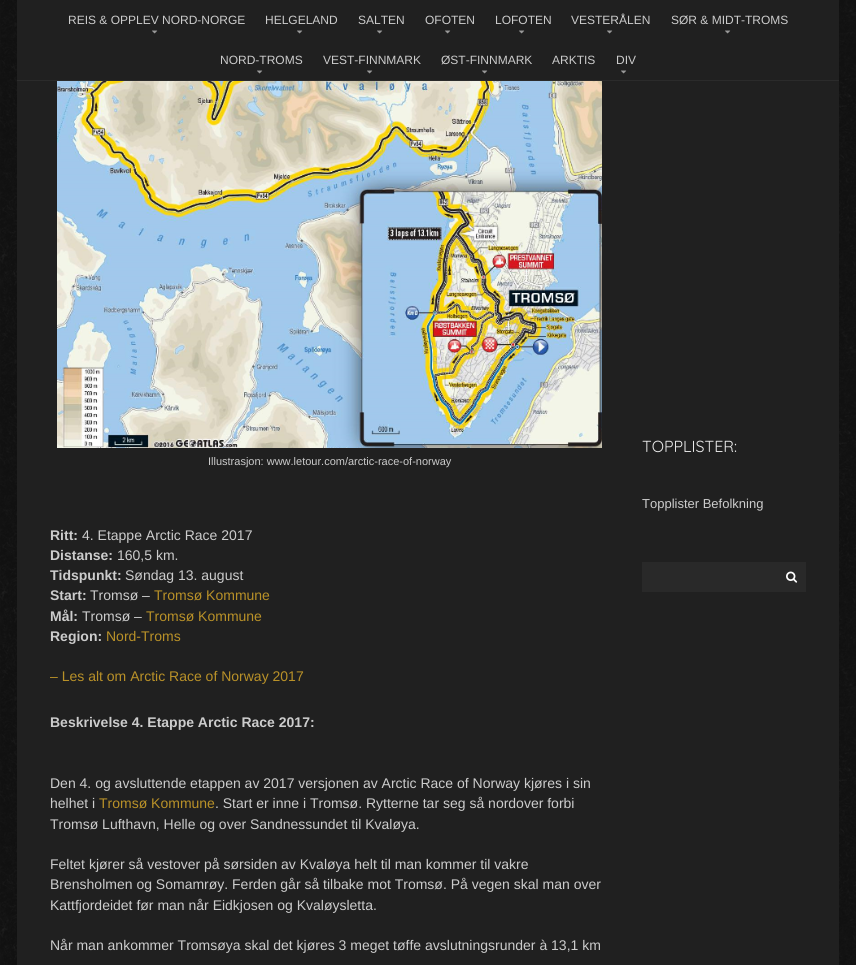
import math
import cairo

surface = cairo.ImageSurface(cairo.FORMAT_RGB24, 856, 965)
cr = cairo.Context(surface)
options = cairo.FontOptions()
options.set_hint_metrics(cairo.HINT_METRICS_OFF)
options.set_hint_style(cairo.HINT_STYLE_NONE)
cr.set_font_options(options)
cr.set_miter_limit(4)


def rgb(code):
    cr.set_source_rgb(*(v / 255 for v in bytes.fromhex(code[-6:])))


def image(path, x, y, w, h):
    cr.save()
    cr.set_source_surface(cairo.ImageSurface.create_from_png(path), x, y)
    cr.rectangle(x, y, w, h)
    cr.fill()
    cr.restore()


rgb("#ffffff")
cr.paint()
image("img/1.png", 0, 0, 856, 965)
for x, y, w, h, color in [
    (17, 81, 822, 884, "#202020"),
    (17, 0, 822, 80, "#202020"),
    (17, 80, 822, 1, "#2b2b2b"),
]:
    rgb(color)
    cr.rectangle(x, y, w, h)
    cr.fill()
image("img/2.png", 152, 30, 6, 4)
image("img/2.png", 297, 30, 6, 4)
image("img/2.png", 377, 30, 6, 4)
image("img/2.png", 445, 30, 6, 4)
image("img/2.png", 519, 30, 6, 4)
image("img/2.png", 607, 30, 6, 4)
image("img/2.png", 725, 30, 6, 4)
image("img/2.png", 257, 70, 6, 4)
image("img/2.png", 367, 70, 6, 4)
image("img/2.png", 482, 70, 6, 4)
image("img/2.png", 621, 70, 6, 4)
image("img/3.png", 57, 81, 545, 367)
rgb("#292929")
cr.rectangle(642, 562, 164, 30)
cr.fill()
image("img/4.png", 786, 571, 12, 12)
cr.select_font_face("Liberation Sans")
cr.set_font_size(12)
rgb("#cccccc")
for x, y, s in [
    (68, 24, "REIS & OPPLEV NORD-NORGE"),
    (265, 24, "HELGELAND"),
    (358, 24, "SALTEN"),
    (425, 24, "OFOTEN"),
    (495, 24, "LOFOTEN"),
    (571, 24, "VESTERÅLEN"),
    (671, 24, "SØR & MIDT-TROMS"),
    (220, 64, "NORD-TROMS"),
    (323, 64, "VEST-FINNMARK"),
    (441, 64, "ØST-FINNMARK"),
    (552, 64, "ARKTIS"),
    (616, 64, "DIV"),
]:
    cr.move_to(x, y)
    cr.show_text(s)
cr.set_font_size(11)
cr.move_to(208, 465)
cr.show_text("Illustrasjon: www.letour.com/arctic-race-of-norway")
cr.select_font_face("Liberation Sans", cairo.FONT_SLANT_NORMAL, cairo.FONT_WEIGHT_BOLD)
cr.set_font_size(14)
cr.move_to(50, 540)
cr.show_text("Ritt:")
cr.select_font_face("Liberation Sans")
cr.move_to(82, 540)
cr.show_text("4. Etappe Arctic Race 2017")
cr.select_font_face("Liberation Sans", cairo.FONT_SLANT_NORMAL, cairo.FONT_WEIGHT_BOLD)
cr.move_to(50, 560)
cr.show_text("Distanse:")
cr.select_font_face("Liberation Sans")
cr.move_to(117, 560)
cr.show_text("160,5 km.")
cr.select_font_face("Liberation Sans", cairo.FONT_SLANT_NORMAL, cairo.FONT_WEIGHT_BOLD)
cr.move_to(50, 580)
cr.show_text("Tidspunkt:")
cr.select_font_face("Liberation Sans")
cr.move_to(125, 580)
cr.show_text("Søndag 13. august")
cr.select_font_face("Liberation Sans", cairo.FONT_SLANT_NORMAL, cairo.FONT_WEIGHT_BOLD)
cr.move_to(50, 600)
cr.show_text("Start:")
cr.select_font_face("Liberation Sans")
cr.move_to(90, 600)
cr.show_text("Tromsø –")
rgb("#b99128")
cr.move_to(154, 600)
cr.show_text("Tromsø Kommune")
cr.select_font_face("Liberation Sans", cairo.FONT_SLANT_NORMAL, cairo.FONT_WEIGHT_BOLD)
rgb("#cccccc")
cr.move_to(50, 621)
cr.show_text("Mål:")
cr.select_font_face("Liberation Sans")
cr.move_to(82, 621)
cr.show_text("Tromsø –")
rgb("#b99128")
cr.move_to(146, 621)
cr.show_text("Tromsø Kommune")
cr.select_font_face("Liberation Sans", cairo.FONT_SLANT_NORMAL, cairo.FONT_WEIGHT_BOLD)
rgb("#cccccc")
cr.move_to(50, 641)
cr.show_text("Region:")
cr.select_font_face("Liberation Sans")
rgb("#b99128")
cr.move_to(106, 641)
cr.show_text("Nord-Troms")
cr.move_to(50, 681)
cr.show_text("– Les alt om Arctic Race of Norway 2017")
cr.select_font_face("Liberation Sans", cairo.FONT_SLANT_NORMAL, cairo.FONT_WEIGHT_BOLD)
rgb("#cccccc")
cr.move_to(50, 727)
cr.show_text("Beskrivelse 4. Etappe Arctic Race 2017:")
cr.select_font_face("Liberation Sans")
cr.move_to(50, 788)
cr.show_text("Den 4. og avsluttende etappen av 2017 versjonen av Arctic Race of Norway kjøres i sin")
cr.move_to(50, 808)
cr.show_text("helhet i")
rgb("#b99128")
cr.move_to(99, 808)
cr.show_text("Tromsø Kommune")
rgb("#cccccc")
for x, y, s in [
    (215, 808, ". Start er inne i Tromsø. Rytterne tar seg så nordover forbi"),
    (50, 829, "Tromsø Lufthavn, Helle og over Sandnessundet til Kvaløya."),
    (50, 869, "Feltet kjører så vestover på sørsiden av Kvaløya helt til man kommer til vakre"),
    (50, 889, "Brensholmen og Somamrøy. Ferden går så tilbake mot Tromsø. På vegen skal man over"),
    (50, 910, "Kattfjordeidet før man når Eidkjosen og Kvaløysletta."),
    (50, 950, "Når man ankommer Tromsøya skal det kjøres 3 meget tøffe avslutningsrunder à 13,1 km"),
]:
    cr.move_to(x, y)
    cr.show_text(s)
cr.select_font_face("Quicksand")
cr.set_font_size(16)
rgb("#eaeaea")
cr.move_to(642, 452)
cr.show_text("TOPPLISTER:")
cr.select_font_face("Liberation Sans")
cr.set_font_size(13)
rgb("#cccccc")
cr.move_to(642, 508)
cr.show_text("Topplister Befolkning")
surface.write_to_png("page.png")
